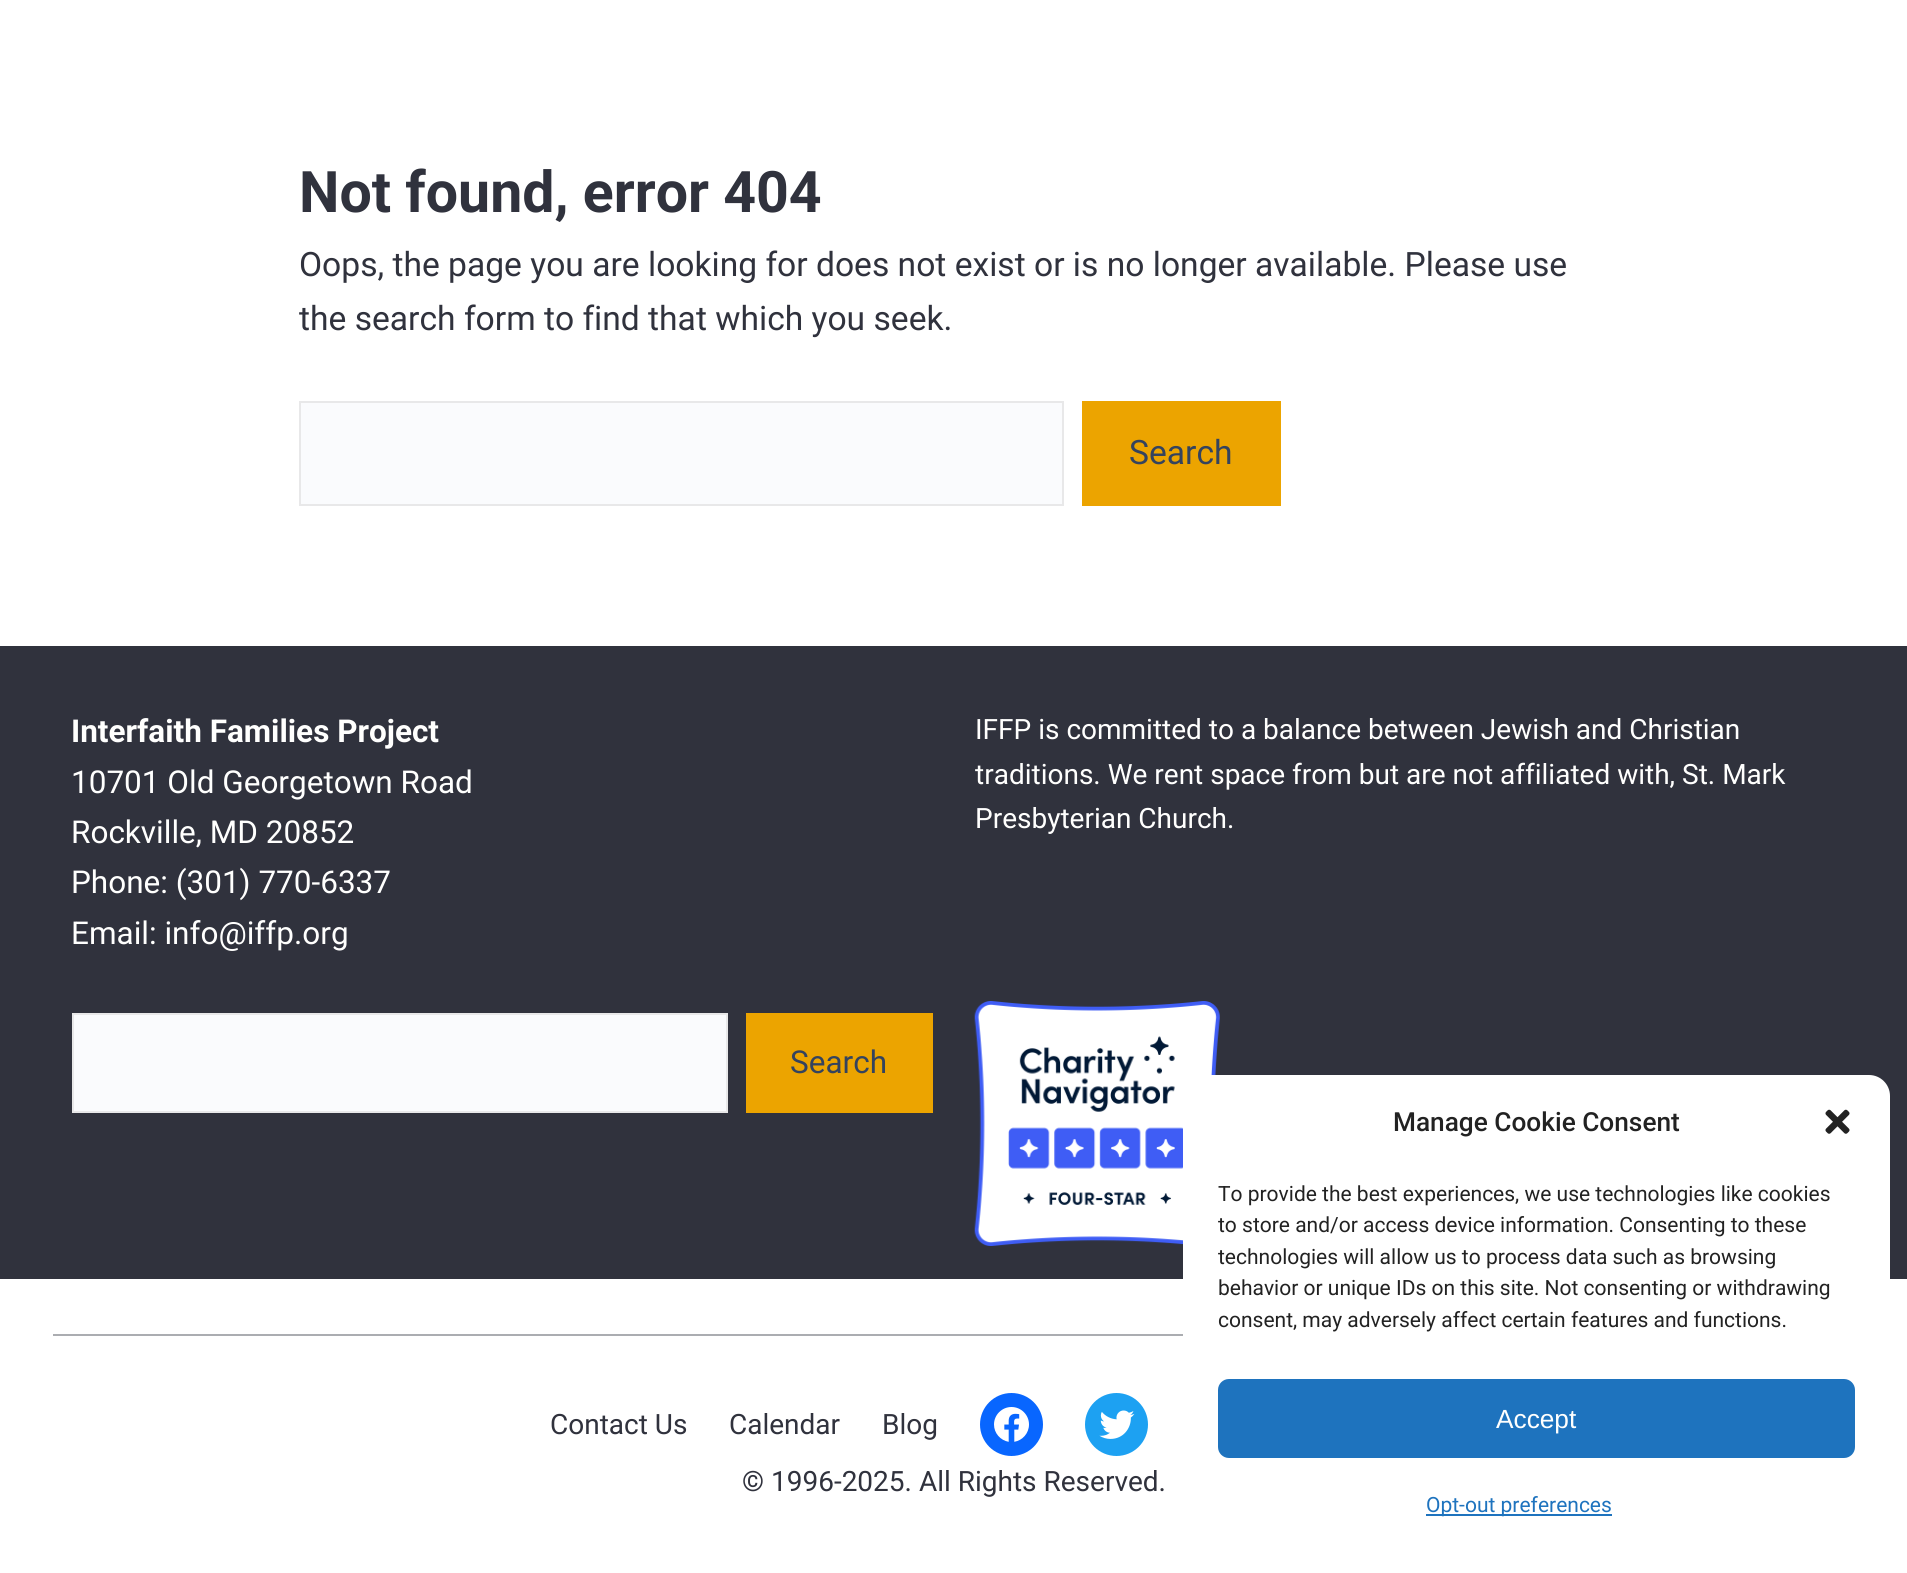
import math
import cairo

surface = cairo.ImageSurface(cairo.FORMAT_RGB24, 1907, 1573)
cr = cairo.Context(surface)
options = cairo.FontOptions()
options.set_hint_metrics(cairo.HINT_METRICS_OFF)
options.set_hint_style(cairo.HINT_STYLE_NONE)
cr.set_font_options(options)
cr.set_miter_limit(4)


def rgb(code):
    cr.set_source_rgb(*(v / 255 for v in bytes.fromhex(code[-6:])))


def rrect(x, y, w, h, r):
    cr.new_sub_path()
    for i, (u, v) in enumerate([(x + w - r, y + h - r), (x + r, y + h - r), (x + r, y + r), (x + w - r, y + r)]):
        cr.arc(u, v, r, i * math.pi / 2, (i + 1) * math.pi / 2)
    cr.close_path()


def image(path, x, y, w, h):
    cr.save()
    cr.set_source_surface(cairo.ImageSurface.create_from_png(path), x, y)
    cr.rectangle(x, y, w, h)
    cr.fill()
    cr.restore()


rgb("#ffffff")
cr.paint()
rgb("#fafbfd")
cr.rectangle(300, 402, 763, 103)
cr.fill_preserve()
rgb("#e8e8e9")
cr.stroke()
rgb("#eca400")
cr.rectangle(1082, 401, 199, 105)
cr.fill()
rgb("#30323d")
cr.rectangle(0, 646, 1907, 633)
cr.fill()
rgb("#fafbfd")
cr.rectangle(73, 1014, 654, 98)
cr.fill_preserve()
rgb("#e8e8e9")
cr.stroke()
rgb("#eca400")
cr.rectangle(746, 1013, 187, 100)
cr.fill()
image("img/1.png", 974, 1001, 246, 245)
rgb("#abadb1")
cr.rectangle(53, 1334, 1130, 2)
cr.fill()
rgb("#0866ff")
cr.arc(1011.5, 1424.5, 31.5, 0, 2 * math.pi)
cr.fill()
image("img/2.png", 994, 1407, 35, 35)
rgb("#1da1f2")
cr.arc(1116.5, 1424.5, 31.5, 0, 2 * math.pi)
cr.fill()
image("img/3.png", 1099, 1410, 36, 29)
rgb("#ffffff")
rrect(1183, 1075, 707, 481, 21)
cr.fill()
image("img/4.png", 1825, 1109, 25, 25)
rgb("#1e73be")
rrect(1219, 1380, 635, 77, 10)
cr.fill_preserve()
cr.stroke()
cr.rectangle(1426, 1514, 186, 2)
cr.fill()
cr.select_font_face("Roboto", cairo.FONT_SLANT_NORMAL, cairo.FONT_WEIGHT_BOLD)
cr.set_font_size(57.25)
rgb("#30323d")
cr.move_to(299, 212)
cr.show_text("Not found, error 404")
cr.select_font_face("Roboto")
cr.set_font_size(33.6)
cr.move_to(299, 276)
cr.show_text("Oops, the page you are looking for does not exist or is no longer available. Please use")
cr.move_to(299, 330)
cr.show_text("the search form to find that which you seek.")
rgb("#34435e")
cr.move_to(1129, 464)
cr.show_text("Search")
cr.select_font_face("Roboto", cairo.FONT_SLANT_NORMAL, cairo.FONT_WEIGHT_BOLD)
cr.set_font_size(31.5)
rgb("#fffffe")
cr.move_to(71, 742)
cr.show_text("Interfaith Families Project")
cr.select_font_face("Roboto")
for x, y, s in [
    (71, 793, "10701 Old Georgetown Road"),
    (71, 843, "Rockville, MD 20852"),
    (71, 893, "Phone: (301) 770-6337"),
    (71, 944, "Email: info@iffp.org"),
]:
    cr.move_to(x, y)
    cr.show_text(s)
rgb("#34435e")
cr.move_to(790, 1073)
cr.show_text("Search")
cr.set_font_size(28)
rgb("#fffffe")
for x, y, s in [
    (975, 739, "IFFP is committed to a balance between Jewish and Christian"),
    (975, 784, "traditions. We rent space from but are not affiliated with, St. Mark"),
    (975, 828, "Presbyterian Church."),
]:
    cr.move_to(x, y)
    cr.show_text(s)
rgb("#30323d")
for x, y, s in [
    (550, 1434, "Contact Us"),
    (729, 1434, "Calendar"),
    (882, 1434, "Blog"),
    (742, 1491, "© 1996-2025. All Rights Reserved."),
]:
    cr.move_to(x, y)
    cr.show_text(s)
cr.select_font_face("Roboto Medium")
cr.set_font_size(26.25)
rgb("#222222")
cr.move_to(1393, 1131)
cr.show_text("Manage Cookie Consent")
cr.select_font_face("Roboto")
cr.set_font_size(21)
for x, y, s in [
    (1218, 1201, "To provide the best experiences, we use technologies like cookies"),
    (1218, 1232, "to store and/or access device information. Consenting to these"),
    (1218, 1264, "technologies will allow us to process data such as browsing"),
    (1218, 1295, "behavior or unique IDs on this site. Not consenting or withdrawing"),
    (1218, 1327, "consent, may adversely affect certain features and functions."),
]:
    cr.move_to(x, y)
    cr.show_text(s)
cr.select_font_face("Liberation Sans")
cr.set_font_size(26.25)
rgb("#fffffe")
cr.move_to(1496, 1428)
cr.show_text("Accept")
cr.select_font_face("Roboto")
cr.set_font_size(21)
rgb("#1e73be")
cr.move_to(1426, 1512)
cr.show_text("Opt-out preferences")
surface.write_to_png("page.png")
